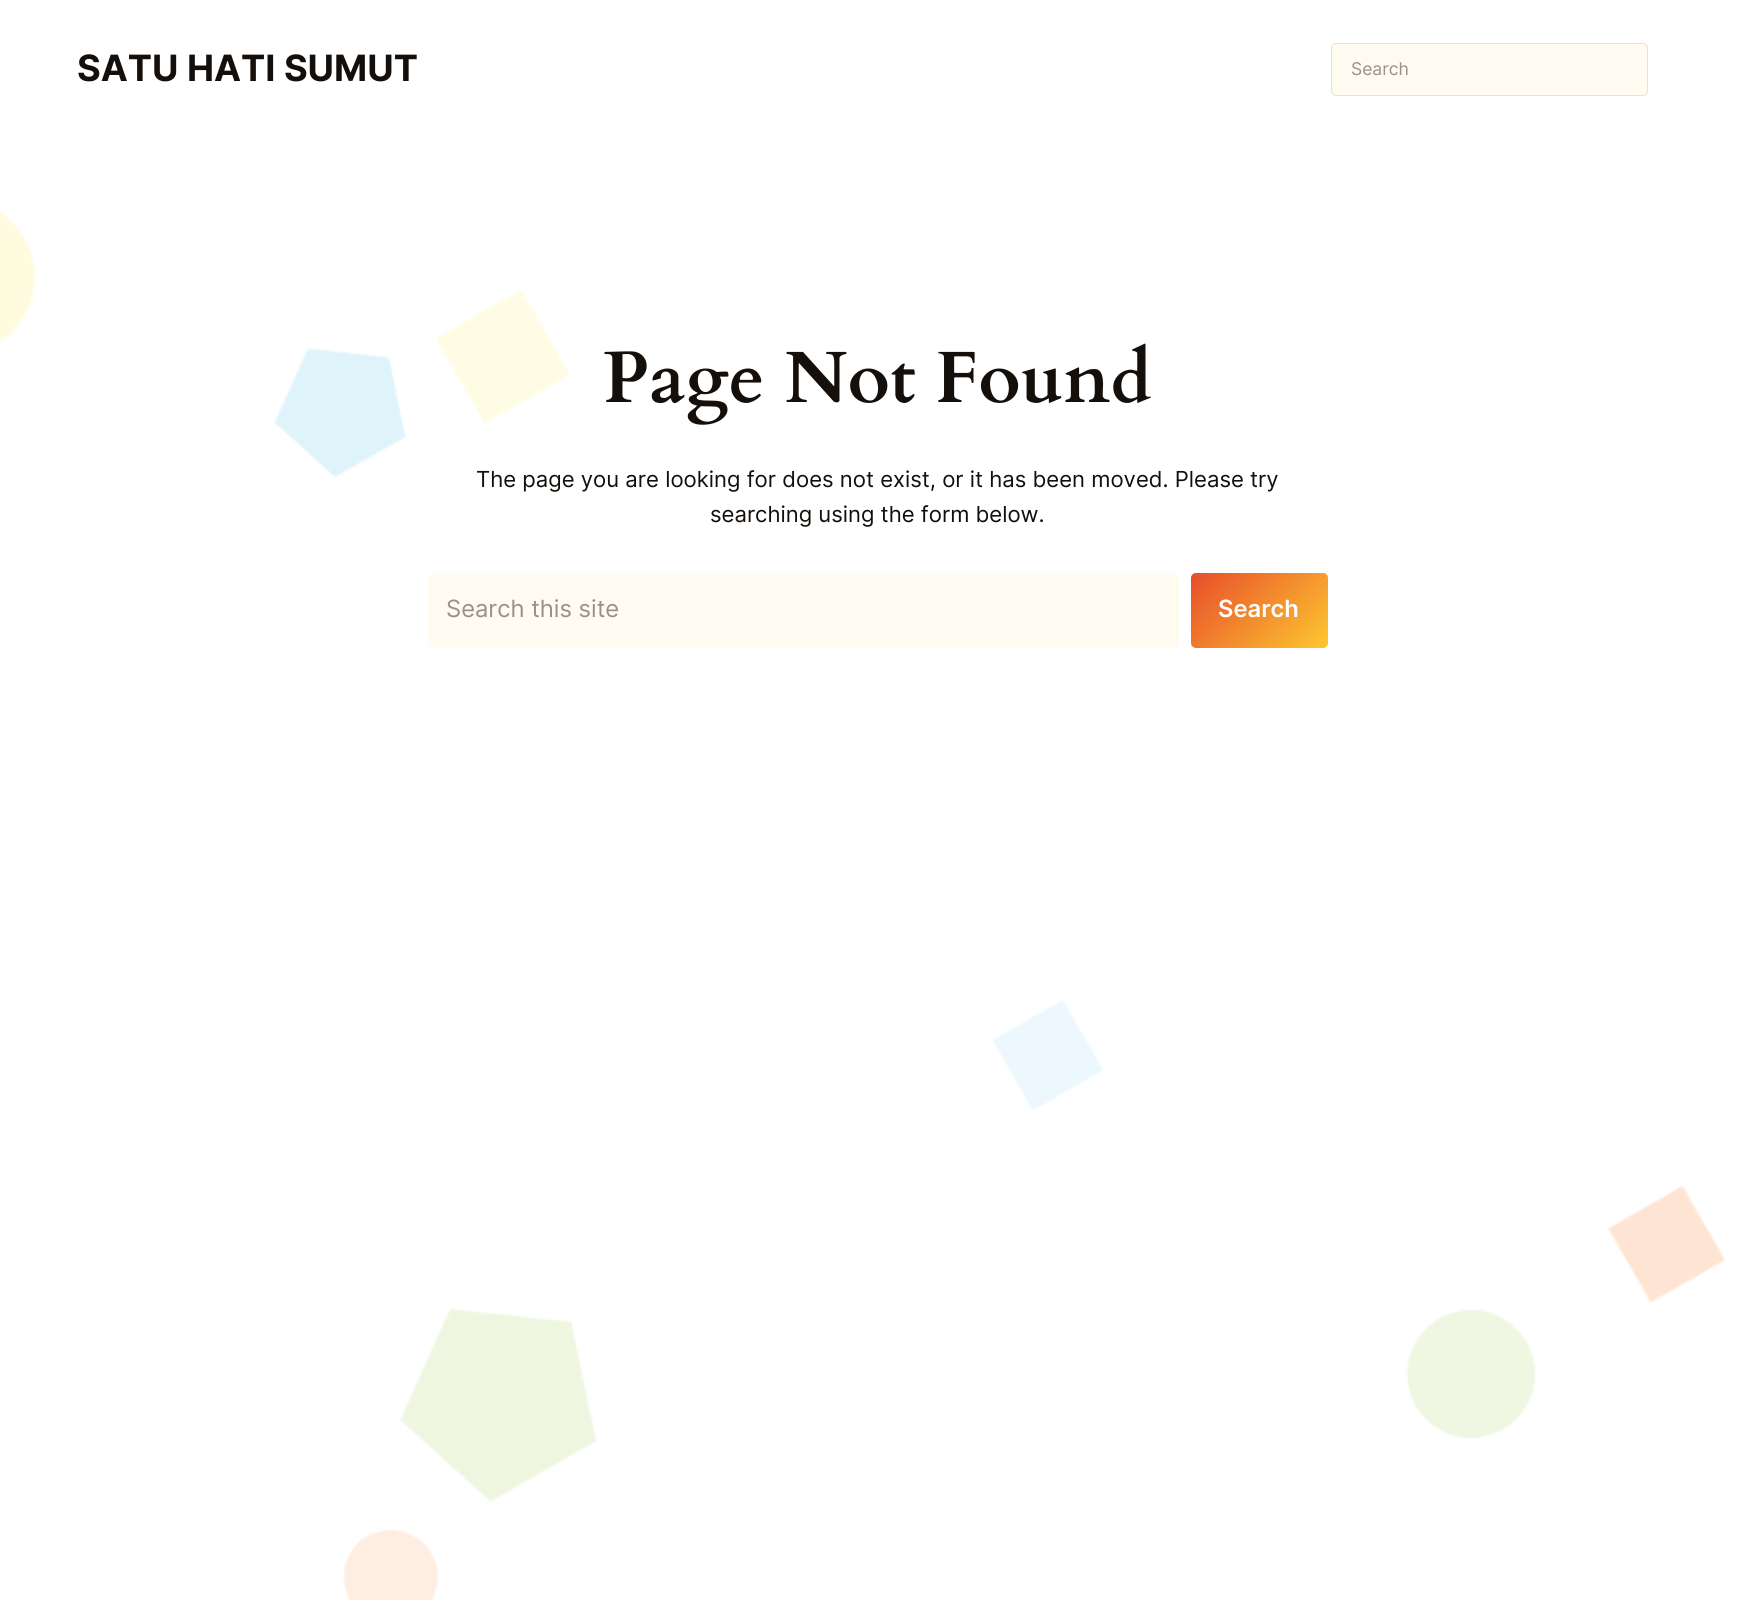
import math
import cairo

surface = cairo.ImageSurface(cairo.FORMAT_RGB24, 1753, 1600)
cr = cairo.Context(surface)
options = cairo.FontOptions()
options.set_hint_metrics(cairo.HINT_METRICS_OFF)
options.set_hint_style(cairo.HINT_STYLE_NONE)
cr.set_font_options(options)
cr.set_miter_limit(4)


def rgb(code):
    cr.set_source_rgb(*(v / 255 for v in bytes.fromhex(code[-6:])))


def rrect(x, y, w, h, r):
    cr.new_sub_path()
    for i, (u, v) in enumerate([(x + w - r, y + h - r), (x + r, y + h - r), (x + r, y + r), (x + w - r, y + r)]):
        cr.arc(u, v, r, i * math.pi / 2, (i + 1) * math.pi / 2)
    cr.close_path()


def image(path, x, y, w, h):
    cr.save()
    cr.set_source_surface(cairo.ImageSurface.create_from_png(path), x, y)
    cr.rectangle(x, y, w, h)
    cr.fill()
    cr.restore()


rgb("#ffffff")
cr.paint()
rgb("#fffbf0")
rrect(1331.5, 43.5, 316, 52, 4.5)
cr.fill_preserve()
rgb("#f2dfc7")
cr.set_line_width(1)
cr.stroke()
image("img/1.png", 0, 211, 1726, 1389)
rgb("#fffbf0")
rrect(428, 573, 751, 75, 5)
cr.fill()
gradient = cairo.LinearGradient(1207, 557, 1312, 663)
gradient.add_color_stop_rgba(0, 0.91, 0.302, 0.165, 1)
gradient.add_color_stop_rgba(1, 0.992, 0.78, 0.192, 1)
cr.set_source(gradient)
rrect(1191, 573, 137, 75, 5)
cr.fill()
cr.select_font_face("Inter", cairo.FONT_SLANT_NORMAL, cairo.FONT_WEIGHT_BOLD)
cr.set_font_size(36.25)
rgb("#140f0a")
cr.move_to(77, 81)
cr.show_text("SATU HATI SUMUT")
cr.select_font_face("Inter")
cr.set_font_size(17.5)
rgb("#95928b")
cr.move_to(1351, 75)
cr.show_text("Search")
cr.select_font_face("Cardo", cairo.FONT_SLANT_NORMAL, cairo.FONT_WEIGHT_BOLD)
cr.set_font_size(72.75)
rgb("#140f0a")
cr.move_to(603, 402)
cr.show_text("Page Not Found")
cr.select_font_face("Inter")
cr.set_font_size(22.1)
cr.move_to(476, 487)
cr.show_text("The page you are looking for does not exist, or it has been moved. Please try")
cr.move_to(710, 522)
cr.show_text("searching using the form below.")
cr.set_font_size(23.75)
rgb("#95928b")
cr.move_to(446, 617)
cr.show_text("Search this site")
cr.select_font_face("Inter SemiBold")
rgb("#ffffff")
cr.move_to(1218, 617)
cr.show_text("Search")
surface.write_to_png("page.png")
